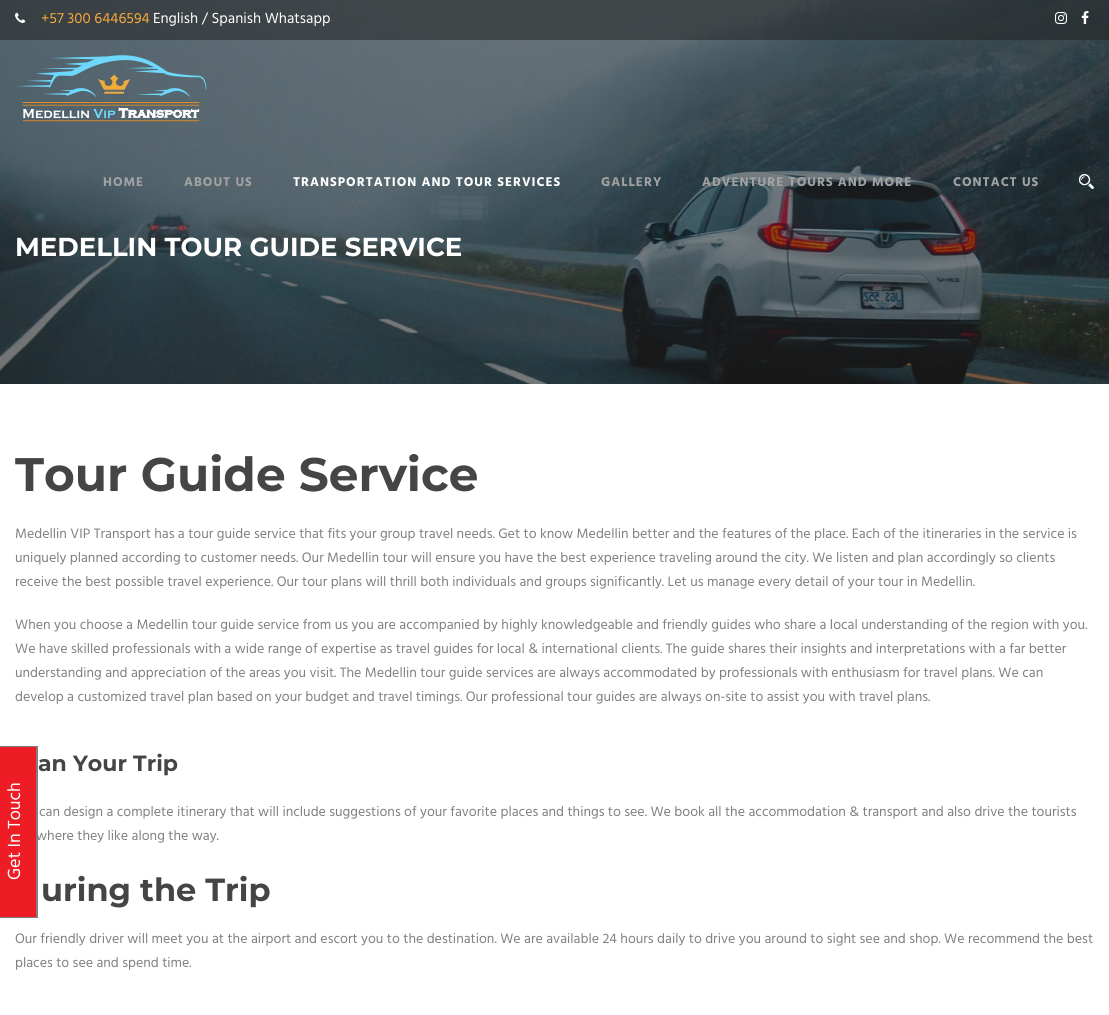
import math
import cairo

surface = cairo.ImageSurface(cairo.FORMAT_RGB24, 1109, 1015)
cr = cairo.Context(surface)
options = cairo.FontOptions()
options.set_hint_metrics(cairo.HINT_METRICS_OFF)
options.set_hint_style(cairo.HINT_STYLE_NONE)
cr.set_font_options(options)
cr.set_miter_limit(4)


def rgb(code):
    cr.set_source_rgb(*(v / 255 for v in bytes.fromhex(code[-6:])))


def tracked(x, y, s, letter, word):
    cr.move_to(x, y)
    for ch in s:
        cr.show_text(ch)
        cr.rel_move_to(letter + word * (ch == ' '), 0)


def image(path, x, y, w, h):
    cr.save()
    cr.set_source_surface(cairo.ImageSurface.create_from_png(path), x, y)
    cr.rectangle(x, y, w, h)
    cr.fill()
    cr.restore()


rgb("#ffffff")
cr.paint()
rgb("#ee1c25")
cr.rectangle(0, 747, 36, 170)
cr.fill()
rgb("#7f7f7f")
cr.rectangle(0, 746, 38, 1)
cr.fill()
image("img/6.png", 0, 0, 1109, 384)
cr.set_source_rgba(0.137, 0.137, 0.137, 0.55)
cr.rectangle(0, 0, 1109, 40)
cr.fill()
image("img/1.png", 15, 12, 11, 11)
image("img/2.png", 1055, 12, 12, 12)
image("img/3.png", 1081, 11, 8, 13)
image("img/4.png", 16, 55, 191, 67)
image("img/5.png", 1079, 174, 15, 15)
cr.select_font_face("Hind")
cr.set_font_size(18)
rgb("#ffffff")
cr.save()
cr.translate(20, 880)
cr.rotate(-90 * math.pi / 180)
cr.move_to(0, 0)
cr.show_text("Get In Touch")
cr.restore()
cr.set_font_size(15)
rgb("#f6a93c")
cr.move_to(41, 23)
cr.show_text("+57 300 6446594")
rgb("#ffffff")
cr.move_to(153, 23)
cr.show_text("English / Spanish Whatsapp")
cr.select_font_face("Hind", cairo.FONT_SLANT_NORMAL, cairo.FONT_WEIGHT_BOLD)
cr.set_font_size(13)
rgb("#a2a2a2")
tracked(103, 186, "HOME", 1, 0)
tracked(184, 186, "ABOUT US", 1, 0)
rgb("#ffffff")
tracked(293, 186, "TRANSPORTATION AND TOUR SERVICES", 1, 0)
rgb("#a2a2a2")
for x, y, s in [
    (601, 186, "GALLERY"),
    (702, 186, "ADVENTURE TOURS AND MORE"),
    (953, 186, "CONTACT US"),
]:
    tracked(x, y, s, 1, 0)
cr.select_font_face("Montserrat", cairo.FONT_SLANT_NORMAL, cairo.FONT_WEIGHT_BOLD)
cr.set_font_size(26)
rgb("#ffffff")
cr.move_to(15, 256)
cr.show_text("MEDELLIN TOUR GUIDE SERVICE")
cr.set_font_size(47)
rgb("#454545")
cr.move_to(15, 491)
cr.show_text("Tour Guide Service")
cr.select_font_face("Hind")
cr.set_font_size(14)
rgb("#808080")
for x, y, s in [
    (15, 538, "Medellin VIP Transport has a tour guide service that fits your group travel needs. Get to know Medellin better and the features of the place. Each of the itineraries in the service is"),
    (15, 562, "uniquely planned according to customer needs. Our Medellin tour will ensure you have the best experience traveling around the city. We listen and plan accordingly so clients"),
    (15, 586, "receive the best possible travel experience. Our tour plans will thrill both individuals and groups significantly. Let us manage every detail of your tour in Medellin."),
    (15, 629, "When you choose a Medellin tour guide service from us you are accompanied by highly knowledgeable and friendly guides who share a local understanding of the region with you."),
    (15, 653, "We have skilled professionals with a wide range of expertise as travel guides for local & international clients. The guide shares their insights and interpretations with a far better"),
    (15, 677, "understanding and appreciation of the areas you visit. The Medellin tour guide services are always accommodated by professionals with enthusiasm for travel plans. We can"),
    (15, 701, "develop a customized travel plan based on your budget and travel timings. Our professional tour guides are always on-site to assist you with travel plans."),
]:
    cr.move_to(x, y)
    cr.show_text(s)
cr.select_font_face("Montserrat", cairo.FONT_SLANT_NORMAL, cairo.FONT_WEIGHT_BOLD)
cr.set_font_size(22)
rgb("#454545")
cr.move_to(38, 771)
cr.show_text("an Your Trip")
cr.select_font_face("Hind")
cr.set_font_size(14)
rgb("#808080")
cr.move_to(39, 816)
cr.show_text("can design a complete itinerary that will include suggestions of your favorite places and things to see. We book all the accommodation & transport and also drive the tourists")
cr.move_to(36, 840)
cr.show_text("where they like along the way.")
rgb("#7f7f7f")
cr.rectangle(36, 746, 2, 172)
cr.fill()
cr.rectangle(0, 917, 38, 1)
cr.fill()
cr.select_font_face("Montserrat", cairo.FONT_SLANT_NORMAL, cairo.FONT_WEIGHT_BOLD)
cr.set_font_size(32)
rgb("#454545")
cr.move_to(41, 901)
cr.show_text("uring the Trip")
cr.select_font_face("Hind")
cr.set_font_size(14)
rgb("#808080")
cr.move_to(15, 943)
cr.show_text("Our friendly driver will meet you at the airport and escort you to the destination. We are available 24 hours daily to drive you around to sight see and shop. We recommend the best")
cr.move_to(15, 967)
cr.show_text("places to see and spend time.")
surface.write_to_png("page.png")
